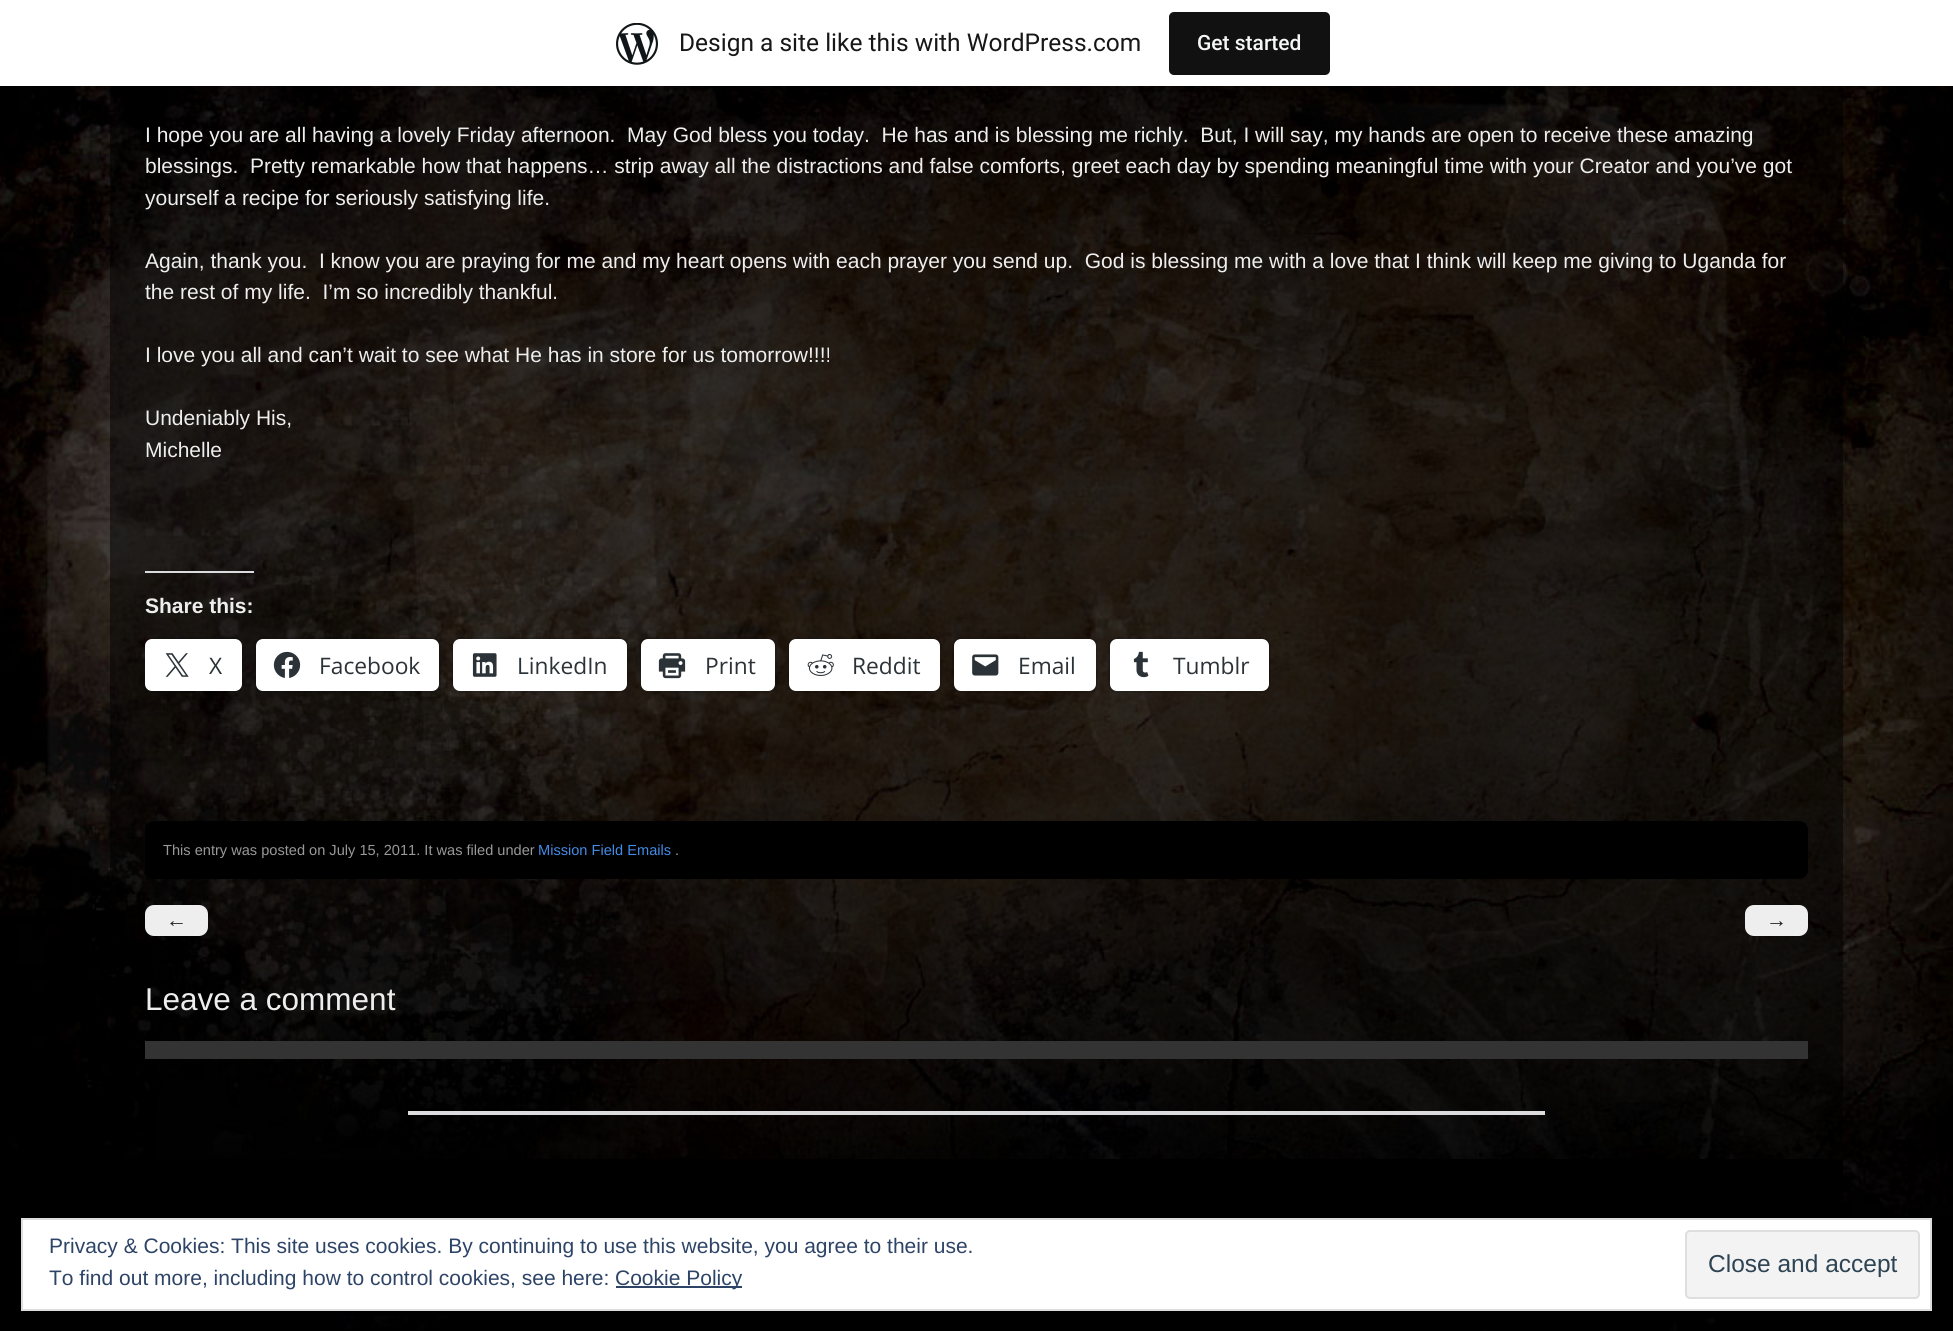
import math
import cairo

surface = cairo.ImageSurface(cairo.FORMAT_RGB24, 1953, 1331)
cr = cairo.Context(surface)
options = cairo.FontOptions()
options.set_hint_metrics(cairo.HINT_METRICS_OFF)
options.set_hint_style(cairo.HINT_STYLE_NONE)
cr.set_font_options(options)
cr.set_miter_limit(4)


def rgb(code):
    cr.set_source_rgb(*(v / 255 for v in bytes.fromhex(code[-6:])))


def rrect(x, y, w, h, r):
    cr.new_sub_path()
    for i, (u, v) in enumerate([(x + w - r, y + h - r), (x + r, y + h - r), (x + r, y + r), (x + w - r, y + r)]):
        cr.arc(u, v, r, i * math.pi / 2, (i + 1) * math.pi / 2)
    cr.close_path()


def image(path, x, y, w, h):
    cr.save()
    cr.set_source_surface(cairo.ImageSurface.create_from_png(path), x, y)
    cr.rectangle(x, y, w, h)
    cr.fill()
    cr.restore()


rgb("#ffffff")
cr.paint()
image("img/1.png", 0, 86, 1953, 1245)
cr.set_source_rgba(0, 0, 0, 0.5)
cr.rectangle(110, 86, 1733, 1073)
cr.fill()
cr.set_source_rgba(0, 0, 0, 0.08)
cr.new_path()
cr.move_to(2, 86)
cr.line_to(2, 91)
cr.line_to(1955, 91)
cr.line_to(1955, 5)
cr.line_to(1953, 5)
cr.line_to(1953, 86)
cr.close_path()
cr.fill()
image("img/2.png", 616, 23, 42, 42)
rgb("#111111")
rrect(1169, 12, 161, 63, 5)
cr.fill()
rgb("#dcdcde")
cr.rectangle(145, 571, 109, 2)
cr.fill()
cr.save()
cr.rectangle(145, 0, 1663, 1138)
cr.clip()
rrect(145, 638, 97, 54, 8)
cr.set_source_rgba(0, 0, 0, 0.12)
cr.stroke()
cr.restore()
rgb("#ffffff")
rrect(145, 639, 97, 52, 7)
cr.fill()
image("img/3.png", 165, 653, 24, 24)
rrect(255, 638, 185, 54, 8)
cr.set_source_rgba(0, 0, 0, 0.12)
cr.stroke()
rgb("#ffffff")
rrect(256, 639, 183, 52, 7)
cr.fill()
image("img/4.png", 273, 651, 28, 27)
rrect(453, 638, 174, 54, 8)
cr.set_source_rgba(0, 0, 0, 0.12)
cr.stroke()
rgb("#ffffff")
rrect(453, 639, 174, 52, 7)
cr.fill()
image("img/5.png", 472, 653, 25, 24)
rrect(640, 638, 136, 54, 8)
cr.set_source_rgba(0, 0, 0, 0.12)
cr.stroke()
rgb("#ffffff")
rrect(641, 639, 134, 52, 7)
cr.fill()
image("img/6.png", 658, 653, 28, 26)
rrect(789, 638, 152, 54, 8)
cr.set_source_rgba(0, 0, 0, 0.12)
cr.stroke()
rgb("#ffffff")
rrect(789, 639, 151, 52, 7)
cr.fill()
image("img/7.png", 807, 654, 27, 22)
rrect(953, 638, 143, 54, 8)
cr.set_source_rgba(0, 0, 0, 0.12)
cr.stroke()
rgb("#ffffff")
rrect(954, 639, 142, 52, 7)
cr.fill()
image("img/8.png", 972, 654, 27, 22)
rrect(1109, 638, 161, 54, 8)
cr.set_source_rgba(0, 0, 0, 0.12)
cr.stroke()
rgb("#ffffff")
rrect(1110, 639, 159, 52, 7)
cr.fill()
image("img/9.png", 1133, 651, 16, 27)
rgb("#000000")
rrect(145, 821, 1663, 58, 9)
cr.fill()
rgb("#eeeeee")
rrect(145, 905, 63, 31, 9)
cr.fill()
rrect(1745, 905, 63, 31, 9)
cr.fill()
for x, y, w, h, color in [
    (145, 1041, 1663, 18, "#333333"),
    (408, 1111, 1137, 4, "#dcdcde"),
    (110, 1159, 1733, 157, "#000000"),
]:
    rgb(color)
    cr.rectangle(x, y, w, h)
    cr.fill()
rgb("#ffffff")
cr.rectangle(22, 1219, 1909, 91)
cr.fill_preserve()
rgb("#dedede")
cr.stroke()
rgb("#2e4467")
cr.rectangle(616, 1286, 126, 2)
cr.fill()
rgb("#f3f3f3")
rrect(1686, 1231, 233, 67, 4)
cr.fill_preserve()
rgb("#dedede")
cr.stroke()
cr.select_font_face("Roboto")
cr.set_font_size(24.5)
rgb("#171717")
cr.move_to(679, 51)
cr.show_text("Design a site like this with WordPress.com")
cr.select_font_face("Roboto Medium")
cr.set_font_size(21)
rgb("#f6f7f7")
cr.move_to(1197, 50)
cr.show_text("Get started")
cr.select_font_face("Liberation Sans")
rgb("#eeeeee")
for x, y, s in [
    (145, 142, "I hope you are all having a lovely Friday afternoon.  May God bless you today.  He has and is blessing me richly.  But, I will say, my hands are open to receive these amazing"),
    (145, 173, "blessings.  Pretty remarkable how that happens… strip away all the distractions and false comforts, greet each day by spending meaningful time with your Creator and you’ve got"),
    (145, 205, "yourself a recipe for seriously satisfying life."),
    (145, 268, "Again, thank you.  I know you are praying for me and my heart opens with each prayer you send up.  God is blessing me with a love that I think will keep me giving to Uganda for"),
    (145, 299, "the rest of my life.  I’m so incredibly thankful."),
    (145, 362, "I love you all and can’t wait to see what He has in store for us tomorrow!!!!"),
    (145, 425, "Undeniably His,"),
    (145, 457, "Michelle"),
]:
    cr.move_to(x, y)
    cr.show_text(s)
cr.select_font_face("Liberation Sans", cairo.FONT_SLANT_NORMAL, cairo.FONT_WEIGHT_BOLD)
cr.move_to(145, 613)
cr.show_text("Share this:")
cr.select_font_face("Open Sans")
cr.set_font_size(22.75)
rgb("#2c3338")
for x, y, s in [
    (209, 674, "X"),
    (319, 674, "Facebook"),
    (517, 674, "LinkedIn"),
    (705, 674, "Print"),
    (852, 674, "Reddit"),
    (1018, 674, "Email"),
    (1173, 674, "Tumblr"),
]:
    cr.move_to(x, y)
    cr.show_text(s)
cr.select_font_face("Liberation Sans")
cr.set_font_size(14.6)
rgb("#999999")
cr.move_to(163, 855)
cr.show_text("This entry was posted on July 15, 2011. It was filed under")
rgb("#428ce7")
cr.move_to(538, 855)
cr.show_text("Mission Field Emails")
rgb("#999999")
cr.move_to(675, 855)
cr.show_text(".")
cr.set_font_size(21)
rgb("#222222")
cr.move_to(166, 927)
cr.show_text("←")
cr.move_to(1766, 927)
cr.show_text("→")
cr.set_font_size(31.5)
rgb("#eeeeee")
cr.move_to(145, 1010)
cr.show_text("Leave a comment")
cr.set_font_size(21)
rgb("#2e4467")
for x, y, s in [
    (49, 1253, "Privacy & Cookies: This site uses cookies. By continuing to use this website, you agree to their use."),
    (49, 1285, "To find out more, including how to control cookies, see here:"),
    (615, 1285, "Cookie Policy"),
]:
    cr.move_to(x, y)
    cr.show_text(s)
cr.set_font_size(24.5)
rgb("#2e4453")
cr.move_to(1708, 1272)
cr.show_text("Close and accept")
surface.write_to_png("page.png")
